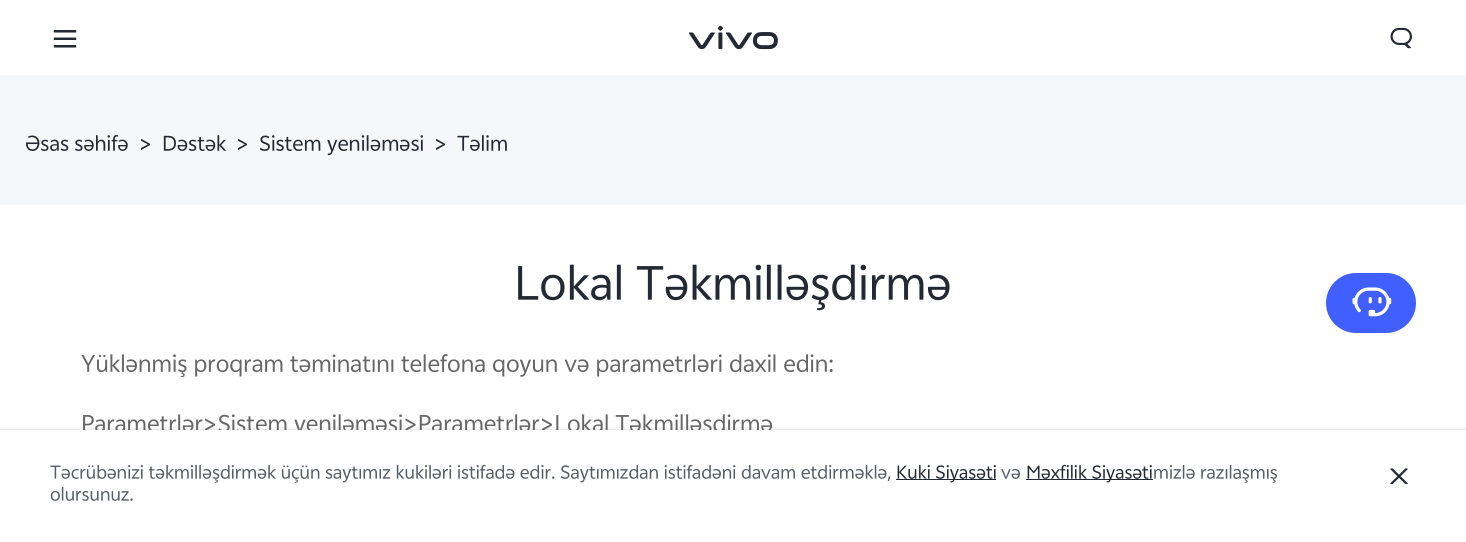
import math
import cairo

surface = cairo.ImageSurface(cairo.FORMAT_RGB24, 1466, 542)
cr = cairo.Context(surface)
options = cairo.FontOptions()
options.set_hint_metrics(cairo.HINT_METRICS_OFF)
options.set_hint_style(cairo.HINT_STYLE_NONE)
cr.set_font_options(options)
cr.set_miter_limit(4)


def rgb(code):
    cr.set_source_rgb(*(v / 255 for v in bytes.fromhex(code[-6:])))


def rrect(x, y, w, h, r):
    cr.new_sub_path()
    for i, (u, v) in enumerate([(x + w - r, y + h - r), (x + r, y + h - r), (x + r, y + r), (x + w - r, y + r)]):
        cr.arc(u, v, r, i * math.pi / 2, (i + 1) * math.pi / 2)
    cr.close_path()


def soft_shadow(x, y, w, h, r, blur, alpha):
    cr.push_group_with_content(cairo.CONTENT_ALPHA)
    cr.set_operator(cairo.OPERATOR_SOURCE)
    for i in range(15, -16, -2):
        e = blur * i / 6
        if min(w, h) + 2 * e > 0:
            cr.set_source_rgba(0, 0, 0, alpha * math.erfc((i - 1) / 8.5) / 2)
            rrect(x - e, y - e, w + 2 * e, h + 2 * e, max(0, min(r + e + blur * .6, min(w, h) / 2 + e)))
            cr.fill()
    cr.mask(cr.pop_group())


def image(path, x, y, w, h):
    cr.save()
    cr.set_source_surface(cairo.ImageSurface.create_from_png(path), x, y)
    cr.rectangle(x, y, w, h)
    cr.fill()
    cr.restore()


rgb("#f5f7fa")
cr.paint()
rgb("#ffffff")
cr.rectangle(0, 0, 1466, 75)
cr.fill()
image("img/1.png", 53, 30, 24, 18)
image("img/2.png", 689, 25, 89, 25)
image("img/3.png", 1390, 27, 22, 22)
cr.rectangle(0, 205, 1466, 225)
cr.fill()
rgb("#415fff")
rrect(1326, 273, 90, 60, 30)
cr.fill()
image("img/4.png", 1352, 287, 40, 30)
rgb("#000000")
soft_shadow(0, 430, 1466, 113, 0, 2, 0.2)
cr.select_font_face("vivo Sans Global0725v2")
cr.set_font_size(20)
rgb("#242933")
for x, y, s in [
    (25, 150, "Əsas səhifə"),
    (139, 150, ">"),
    (162, 150, "Dəstək"),
    (236, 150, ">"),
    (259, 150, "Sistem yeniləməsi"),
    (434, 150, ">"),
    (457, 150, "Təlim"),
]:
    cr.move_to(x, y)
    cr.show_text(s)
cr.set_font_size(45)
cr.move_to(514, 298)
cr.show_text("Lokal Təkmilləşdirmə")
cr.set_font_size(22.5)
rgb("#666666")
cr.move_to(81, 371)
cr.show_text("Yüklənmiş proqram təminatını telefona qoyun və parametrləri daxil edin:")
cr.move_to(81, 431)
cr.show_text("Parametrlər>Sistem yeniləməsi>Parametrlər>Lokal Təkmilləşdirmə")
rgb("#ffffff")
cr.rectangle(0, 430, 1466, 112)
cr.fill()
cr.set_font_size(17.5)
rgb("#575c66")
cr.move_to(50, 478)
cr.show_text("Təcrübənizi təkmilləşdirmək üçün saytımız kukiləri istifadə edir. Saytımızdan istifadəni davam etdirməklə,")
rgb("#242933")
cr.rectangle(896, 479, 100, 1)
cr.fill()
cr.move_to(896, 478)
cr.show_text("Kuki Siyasəti")
rgb("#575c66")
cr.move_to(1001, 478)
cr.show_text("və")
rgb("#242933")
cr.rectangle(1026, 479, 127, 1)
cr.fill()
cr.move_to(1026, 478)
cr.show_text("Məxfilik Siyasəti")
rgb("#575c66")
cr.move_to(1153, 478)
cr.show_text("mizlə razılaşmış")
cr.move_to(50, 500)
cr.show_text("olursunuz.")
image("img/5.png", 1390, 468, 18, 16)
surface.write_to_png("page.png")
